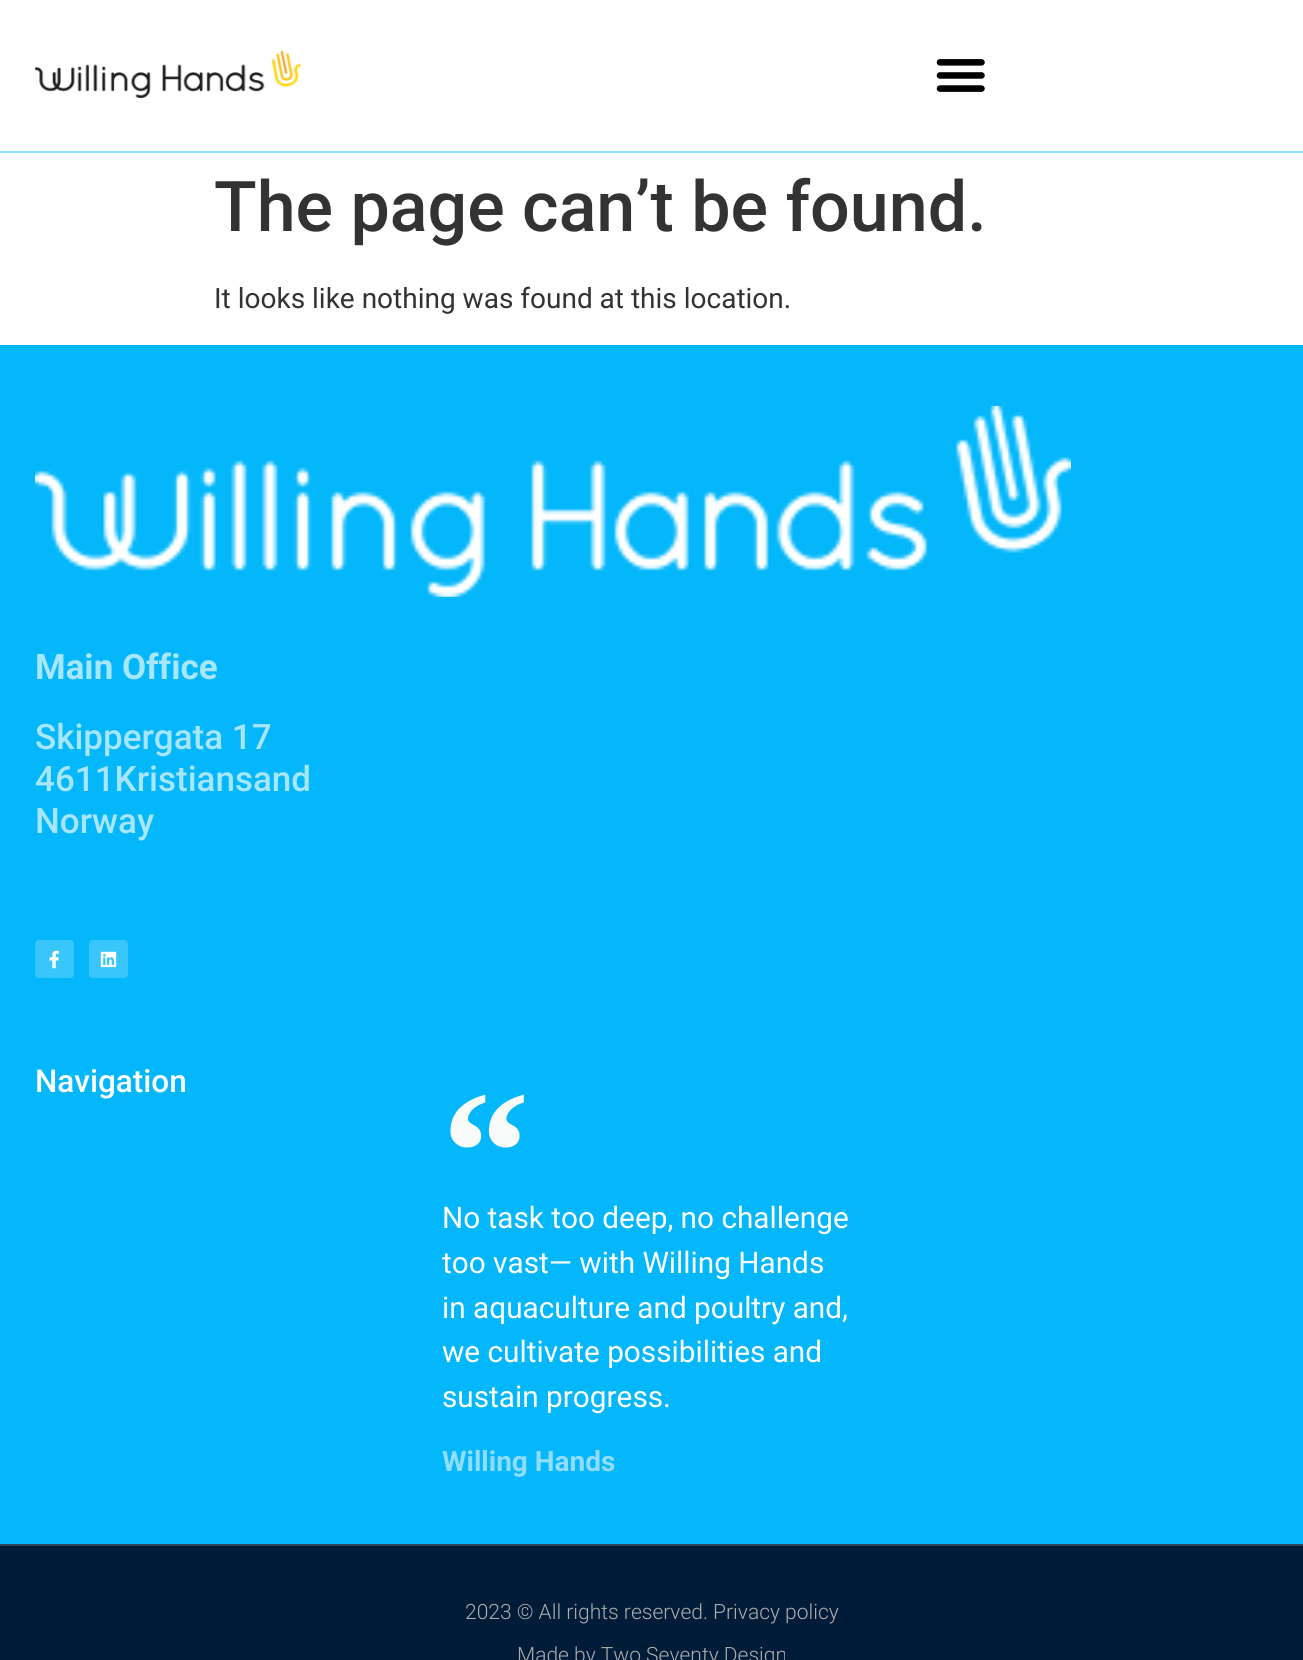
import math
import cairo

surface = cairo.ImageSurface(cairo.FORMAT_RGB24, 1303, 1660)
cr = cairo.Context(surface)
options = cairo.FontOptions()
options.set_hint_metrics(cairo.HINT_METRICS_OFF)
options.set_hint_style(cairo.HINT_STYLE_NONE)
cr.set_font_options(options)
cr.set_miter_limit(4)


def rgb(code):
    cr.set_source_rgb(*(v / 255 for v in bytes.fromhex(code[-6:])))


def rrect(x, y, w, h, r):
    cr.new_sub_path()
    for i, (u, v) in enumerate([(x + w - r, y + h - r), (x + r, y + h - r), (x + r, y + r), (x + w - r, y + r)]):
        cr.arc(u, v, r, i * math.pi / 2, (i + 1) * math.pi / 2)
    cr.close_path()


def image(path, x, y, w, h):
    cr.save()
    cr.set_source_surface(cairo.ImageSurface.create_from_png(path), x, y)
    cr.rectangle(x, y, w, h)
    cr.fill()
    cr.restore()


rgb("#ffffff")
cr.paint()
rgb("#92ddfd")
cr.rectangle(0, 151, 1303, 2)
cr.fill()
image("img/1.png", 35, 50, 266, 49)
image("img/2.png", 936, 59, 49, 33)
rgb("#04b7fa")
cr.rectangle(0, 345, 1303, 1199)
cr.fill()
image("img/3.png", 35, 406, 1036, 191)
rgb("#39c6fb")
rrect(35, 940, 39, 38, 4)
cr.fill()
image("img/4.png", 49, 950, 10, 19)
rrect(89, 940, 39, 38, 4)
cr.fill()
image("img/5.png", 100, 951, 17, 17)
rgb("#001c38")
cr.rectangle(0, 1546, 1303, 114)
cr.fill()
rgb("#30475e")
cr.rectangle(0, 1544, 1303, 2)
cr.fill()
cr.select_font_face("Roboto Medium")
cr.set_font_size(70)
rgb("#333333")
cr.move_to(214, 231)
cr.show_text("The page can’t be found.")
cr.select_font_face("Roboto")
cr.set_font_size(28)
cr.move_to(214, 308)
cr.show_text("It looks like nothing was found at this location.")
cr.select_font_face("Roboto", cairo.FONT_SLANT_NORMAL, cairo.FONT_WEIGHT_BOLD)
cr.set_font_size(35)
rgb("#a7e6fd")
cr.move_to(35, 679)
cr.show_text("Main Office")
cr.select_font_face("Roboto Medium")
for x, y, s in [
    (35, 749, "Skippergata 17"),
    (35, 791, "4611Kristiansand"),
    (35, 833, "Norway"),
]:
    cr.move_to(x, y)
    cr.show_text(s)
cr.set_font_size(31.5)
rgb("#ffffff")
cr.move_to(35, 1092)
cr.show_text("Navigation")
cr.select_font_face("Liberation Serif", cairo.FONT_SLANT_NORMAL, cairo.FONT_WEIGHT_BOLD)
cr.set_font_size(175)
rgb("#f9fafa")
cr.move_to(442, 1211)
cr.show_text("“")
cr.select_font_face("Roboto")
cr.set_font_size(29.75)
rgb("#ffffff")
for x, y, s in [
    (442, 1228, "No task too deep, no challenge"),
    (442, 1273, "too vast— with Willing Hands"),
    (442, 1318, "in aquaculture and poultry and,"),
    (442, 1362, "we cultivate possibilities and"),
    (442, 1407, "sustain progress."),
]:
    cr.move_to(x, y)
    cr.show_text(s)
cr.select_font_face("Roboto", cairo.FONT_SLANT_NORMAL, cairo.FONT_WEIGHT_BOLD)
cr.set_font_size(28)
rgb("#92ddfd")
cr.move_to(442, 1471)
cr.show_text("Willing Hands")
cr.select_font_face("Roboto Light")
cr.set_font_size(21)
rgb("#adadad")
cr.move_to(465, 1619)
cr.show_text("2023 © All rights reserved. Privacy policy")
cr.move_to(517, 1662)
cr.show_text("Made by Two Seventy Design")
surface.write_to_png("page.png")
